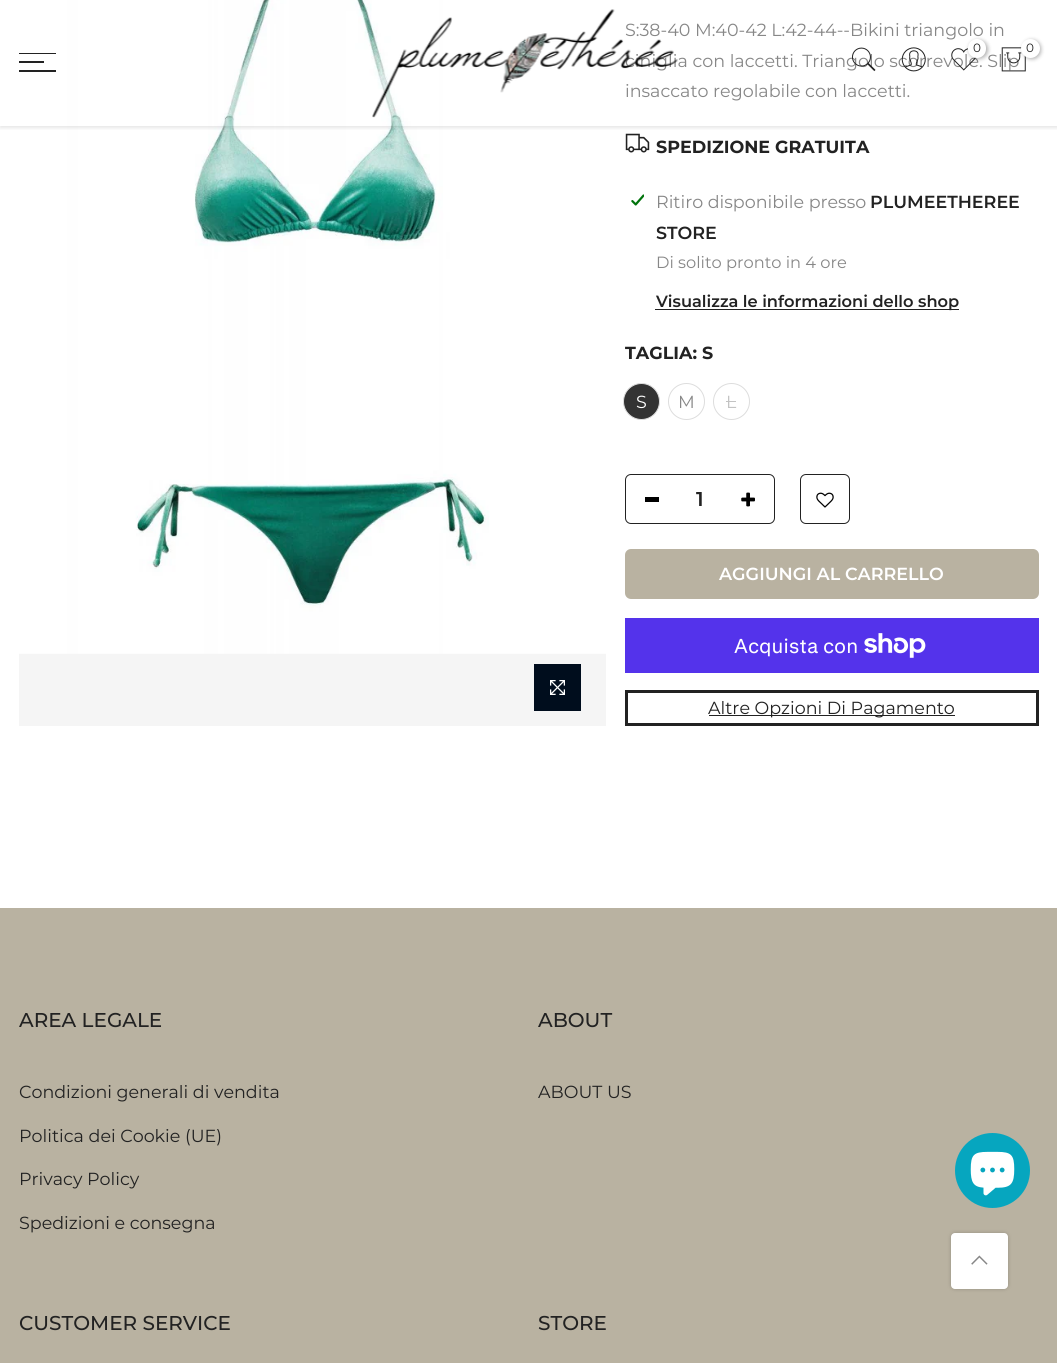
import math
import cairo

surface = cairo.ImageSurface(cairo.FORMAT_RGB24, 1057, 1363)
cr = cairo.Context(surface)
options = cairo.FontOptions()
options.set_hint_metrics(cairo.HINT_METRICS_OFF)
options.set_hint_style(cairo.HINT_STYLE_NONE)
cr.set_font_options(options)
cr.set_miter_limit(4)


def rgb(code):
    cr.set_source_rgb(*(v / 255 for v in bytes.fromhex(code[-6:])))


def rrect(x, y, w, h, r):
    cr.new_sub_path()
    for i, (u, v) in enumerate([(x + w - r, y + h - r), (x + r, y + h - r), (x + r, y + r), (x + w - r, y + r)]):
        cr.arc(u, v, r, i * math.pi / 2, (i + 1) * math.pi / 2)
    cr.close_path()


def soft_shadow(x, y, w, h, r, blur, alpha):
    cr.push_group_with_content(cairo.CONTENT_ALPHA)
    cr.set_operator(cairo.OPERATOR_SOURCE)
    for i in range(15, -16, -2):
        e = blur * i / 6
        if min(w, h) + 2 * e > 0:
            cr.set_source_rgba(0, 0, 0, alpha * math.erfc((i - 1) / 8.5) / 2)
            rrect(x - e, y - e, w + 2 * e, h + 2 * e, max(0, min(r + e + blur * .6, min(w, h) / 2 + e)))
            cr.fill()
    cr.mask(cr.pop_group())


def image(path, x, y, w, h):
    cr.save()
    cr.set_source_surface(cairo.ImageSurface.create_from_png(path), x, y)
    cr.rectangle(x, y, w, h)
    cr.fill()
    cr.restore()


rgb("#ffffff")
cr.paint()
rgb("#f5f5f5")
cr.rectangle(19, 653, 587, 73)
cr.fill()
image("img/1.png", 19, 0, 587, 654)
rgb("#000d1d")
cr.rectangle(534, 664, 47, 47)
cr.fill()
image("img/2.png", 550, 680, 15, 15)
image("img/3.png", 625, 133, 25, 20)
image("img/4.png", 631, 194, 13, 12)
rgb("#222222")
cr.rectangle(655, 309, 304, 1)
cr.fill()
rgb("#333333")
cr.arc(641.5, 401.5, 18, 0, 2 * math.pi)
cr.fill_preserve()
rgb("#dddddd")
cr.set_line_width(1)
cr.stroke()
cr.arc(686.5, 401.5, 18, 0, 2 * math.pi)
cr.stroke()
cr.arc(731.5, 401.5, 18, 0, 2 * math.pi)
cr.stroke()
rgb("#c3c3c3")
cr.rectangle(726, 401, 10, 1)
cr.fill()
rrect(625.5, 474.5, 149, 49, 5.5)
rgb("#222222")
cr.stroke()
rgb("#000000")
cr.rectangle(645, 497, 14, 5)
cr.fill()
image("img/5.png", 741, 492, 14, 15)
rrect(800.5, 474.5, 49, 49, 5.5)
rgb("#222222")
cr.stroke()
image("img/6.png", 816, 492, 18, 16)
rgb("#b9b2a1")
rrect(625, 549, 414, 50, 6)
cr.fill()
rgb("#5433eb")
cr.rectangle(625, 618, 414, 55)
cr.fill()
image("img/7.png", 864, 633, 62, 25)
cr.rectangle(626.5, 691.5, 411, 33)
rgb("#222222")
cr.set_line_width(3)
cr.stroke()
cr.rectangle(709, 715, 246, 1)
cr.fill()
cr.save()
cr.rectangle(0, 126, 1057, 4)
cr.clip()
rgb("#000000")
soft_shadow(0, 1, 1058, 127, 0, 2, 0.1)
cr.restore()
for x, y, w, h, color in [
    (19, 53, 37, 1, "#222222"),
    (19, 61, 25, 2, "#222222"),
    (19, 70, 37, 2, "#222222"),
    (0, 908, 1057, 455, "#b9b2a1"),
]:
    rgb(color)
    cr.rectangle(x, y, w, h)
    cr.fill()
rgb("#06a6bf")
cr.arc(992.5, 1170.5, 37.5, 0, 2 * math.pi)
cr.fill()
image("img/13.png", 970, 1151, 45, 45)
rgb("#000000")
soft_shadow(951, 1233, 57, 56, 4, 2, 0.2)
rgb("#ffffff")
rrect(951, 1233, 57, 56, 4)
cr.fill()
image("img/14.png", 971, 1255, 17, 10)
cr.select_font_face("Montserrat")
cr.set_font_size(17.5)
rgb("#878787")
for x, y, s in [
    (625, 36, "S:38-40 M:40-42 L:42-44--Bikini triangolo in"),
    (625, 67, "ciniglia con laccetti. Triangolo scorrevole. Slip"),
    (625, 97, "insaccato regolabile con laccetti."),
]:
    cr.move_to(x, y)
    cr.show_text(s)
cr.select_font_face("Montserrat", cairo.FONT_SLANT_NORMAL, cairo.FONT_WEIGHT_BOLD)
rgb("#222222")
cr.move_to(656, 153)
cr.show_text("SPEDIZIONE GRATUITA")
cr.select_font_face("Montserrat")
rgb("#878787")
cr.move_to(656, 208)
cr.show_text("Ritiro disponibile presso")
cr.select_font_face("Montserrat SemiBold")
rgb("#222222")
cr.move_to(870, 208)
cr.show_text("PLUMEETHEREE")
cr.move_to(656, 239)
cr.show_text("STORE")
cr.select_font_face("Montserrat")
cr.set_font_size(16.25)
rgb("#878787")
cr.move_to(656, 268)
cr.show_text("Di solito pronto in 4 ore")
cr.select_font_face("Montserrat SemiBold")
rgb("#222222")
cr.move_to(656, 307)
cr.show_text("Visualizza le informazioni dello shop")
cr.select_font_face("Montserrat", cairo.FONT_SLANT_NORMAL, cairo.FONT_WEIGHT_BOLD)
cr.set_font_size(17.5)
cr.move_to(625, 359)
cr.show_text("TAGLIA: S")
cr.select_font_face("Montserrat")
rgb("#ffffff")
cr.move_to(636, 408)
cr.show_text("S")
rgb("#878787")
cr.move_to(678, 408)
cr.show_text("M")
rgb("#c3c3c3")
cr.move_to(726, 408)
cr.show_text("L")
cr.select_font_face("Montserrat SemiBold")
cr.set_font_size(20)
rgb("#222222")
cr.move_to(696, 506)
cr.show_text("1")
cr.set_font_size(17.5)
rgb("#ffffff")
cr.move_to(719, 580)
cr.show_text("AGGIUNGI AL CARRELLO")
cr.select_font_face("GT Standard")
cr.set_font_size(20)
cr.move_to(734, 653)
cr.show_text("Acquista con")
cr.select_font_face("Montserrat")
cr.set_font_size(17.5)
rgb("#222222")
cr.move_to(708, 714)
cr.show_text("Altre Opzioni Di Pagamento")
image("img/8.png", 372, 9, 306, 109)
image("img/9.png", 852, 47, 24, 25)
image("img/10.png", 901, 47, 25, 25)
image("img/11.png", 951, 48, 25, 23)
rgb("#000000")
soft_shadow(969, 40, 19, 19, 9.5, 2, 0.3)
rgb("#ffffff")
rrect(968, 39, 18, 19, 9)
cr.fill()
cr.set_font_size(12)
rgb("#222222")
cr.move_to(973, 52)
cr.show_text("0")
image("img/12.png", 1001, 47, 25, 25)
rgb("#000000")
soft_shadow(1023, 40, 18, 19, 9, 2, 0.3)
rgb("#ffffff")
cr.arc(1030.5, 48.5, 9.5, 0, 2 * math.pi)
cr.fill()
rgb("#222222")
cr.move_to(1026, 52)
cr.show_text("0")
cr.select_font_face("Montserrat Medium")
cr.set_font_size(20)
cr.move_to(19, 1027)
cr.show_text("AREA LEGALE")
cr.select_font_face("Montserrat")
cr.set_font_size(17.5)
for x, y, s in [
    (19, 1098, "Condizioni generali di vendita"),
    (19, 1142, "Politica dei Cookie (UE)"),
    (19, 1185, "Privacy Policy"),
    (19, 1229, "Spedizioni e consegna"),
]:
    cr.move_to(x, y)
    cr.show_text(s)
cr.select_font_face("Montserrat Medium")
cr.set_font_size(20)
cr.move_to(538, 1027)
cr.show_text("ABOUT")
cr.select_font_face("Montserrat")
cr.set_font_size(17.5)
cr.move_to(538, 1098)
cr.show_text("ABOUT US")
cr.select_font_face("Montserrat Medium")
cr.set_font_size(20)
cr.move_to(19, 1330)
cr.show_text("CUSTOMER SERVICE")
cr.move_to(538, 1330)
cr.show_text("STORE")
surface.write_to_png("page.png")
